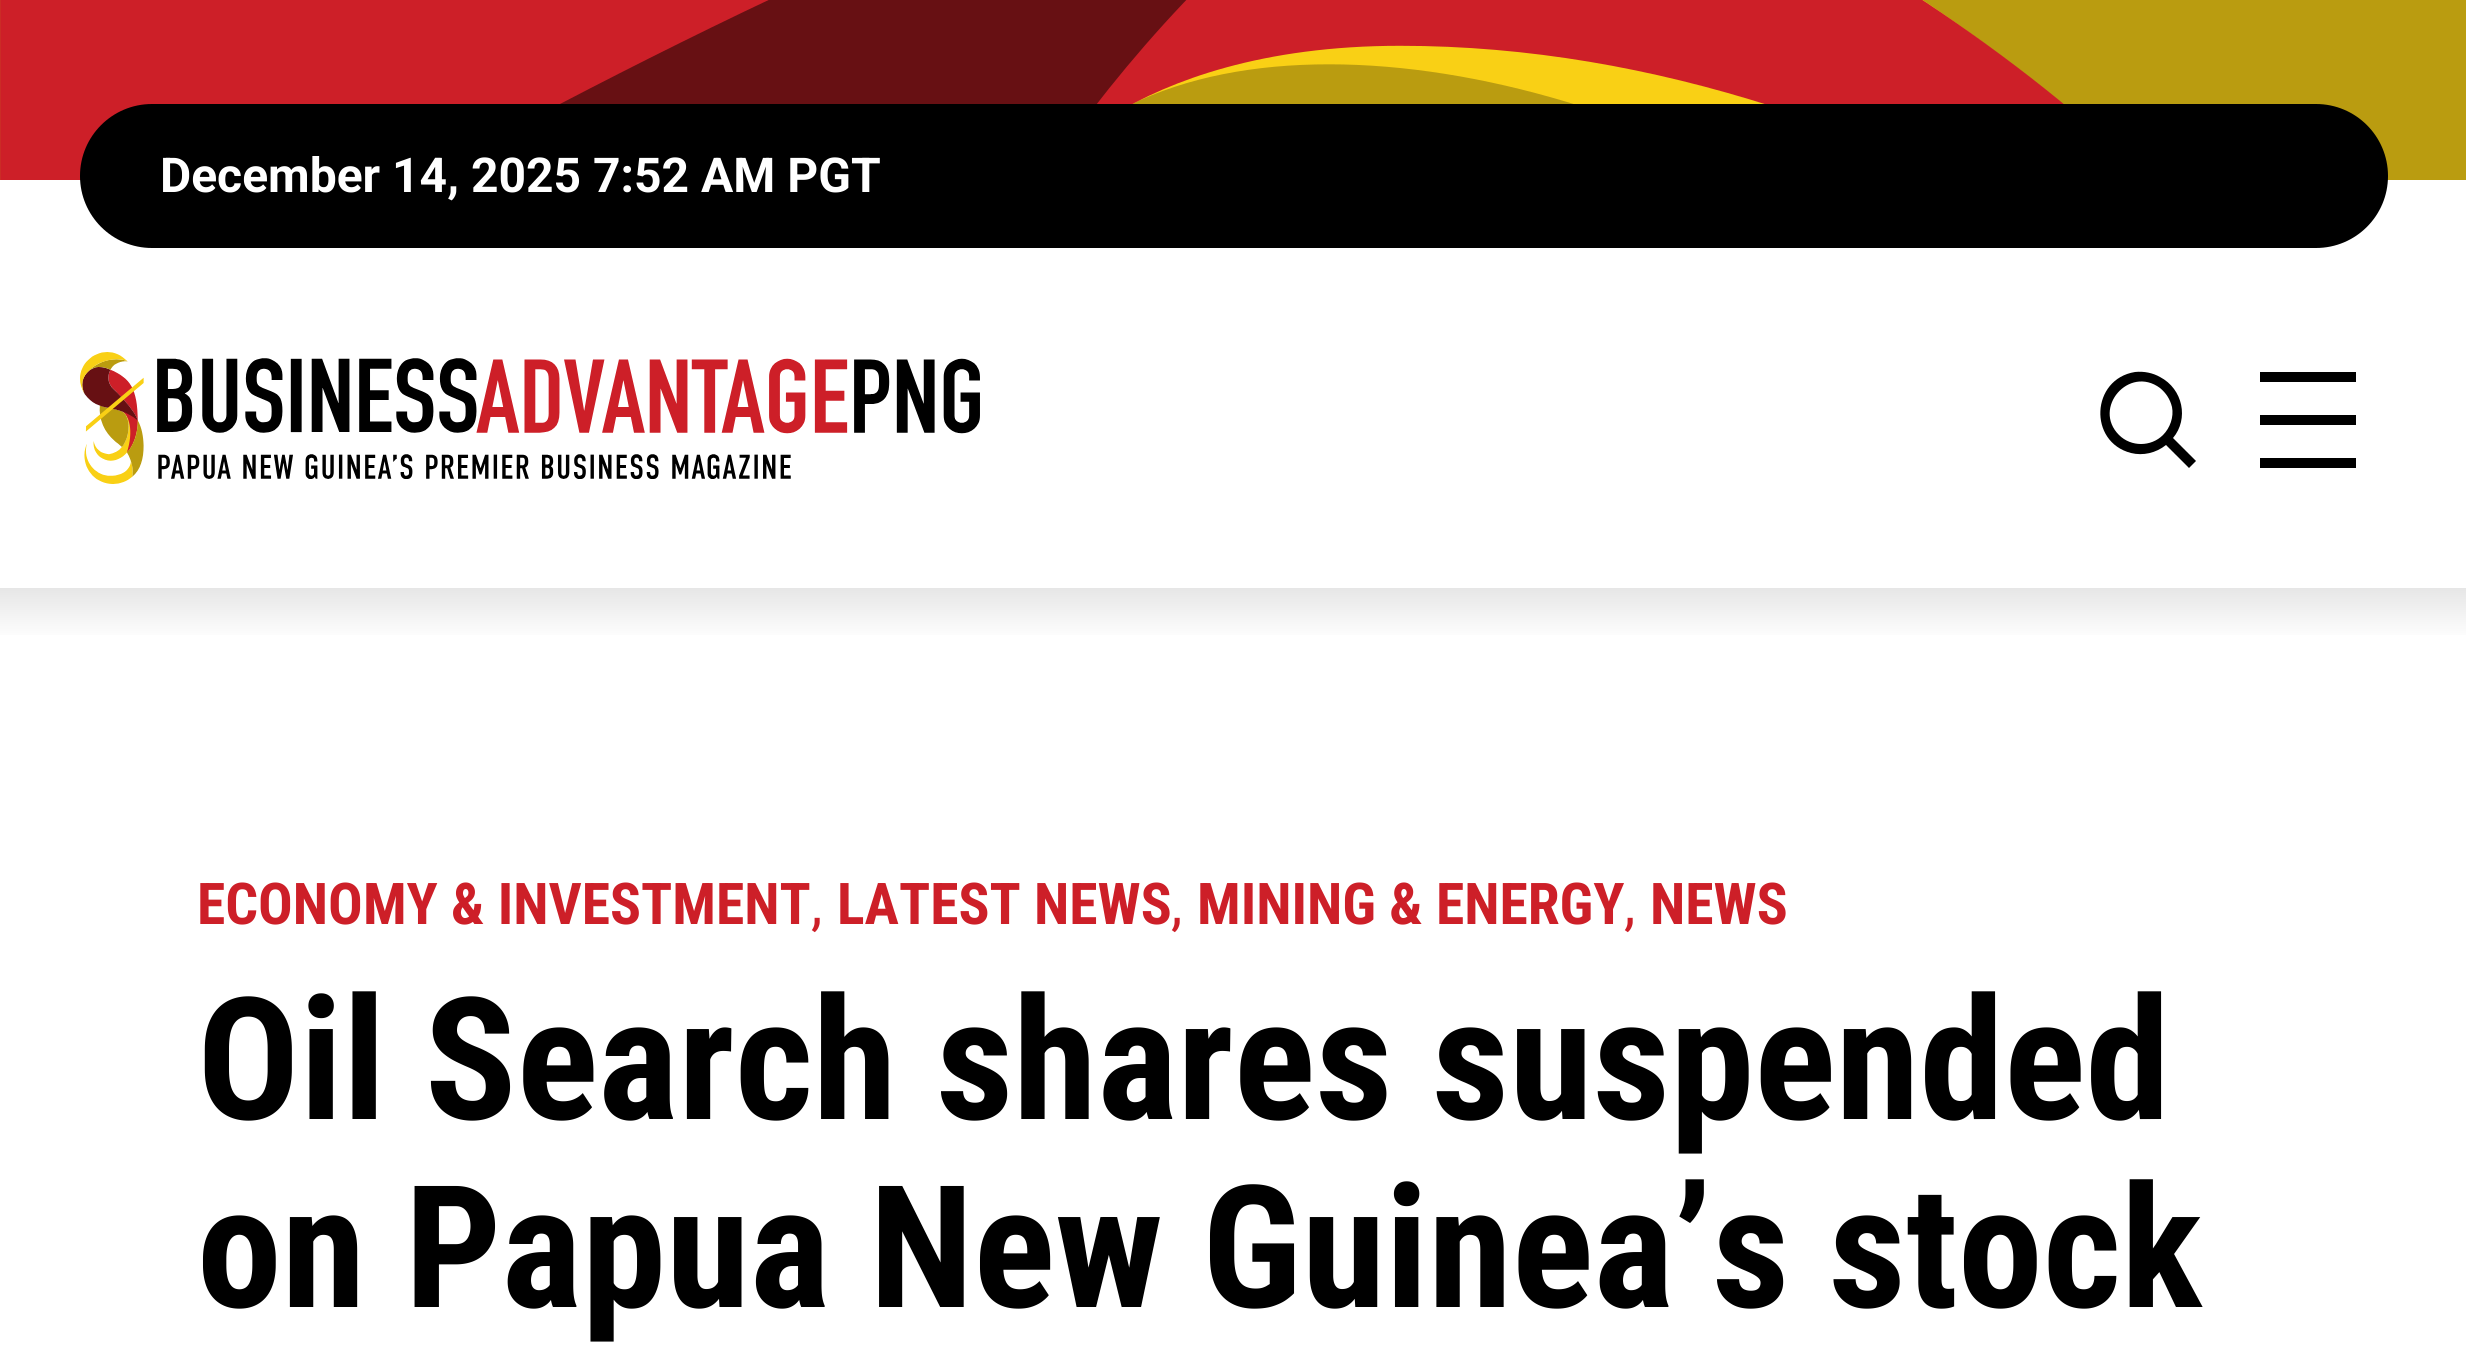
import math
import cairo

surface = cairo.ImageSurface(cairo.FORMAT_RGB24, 2466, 1371)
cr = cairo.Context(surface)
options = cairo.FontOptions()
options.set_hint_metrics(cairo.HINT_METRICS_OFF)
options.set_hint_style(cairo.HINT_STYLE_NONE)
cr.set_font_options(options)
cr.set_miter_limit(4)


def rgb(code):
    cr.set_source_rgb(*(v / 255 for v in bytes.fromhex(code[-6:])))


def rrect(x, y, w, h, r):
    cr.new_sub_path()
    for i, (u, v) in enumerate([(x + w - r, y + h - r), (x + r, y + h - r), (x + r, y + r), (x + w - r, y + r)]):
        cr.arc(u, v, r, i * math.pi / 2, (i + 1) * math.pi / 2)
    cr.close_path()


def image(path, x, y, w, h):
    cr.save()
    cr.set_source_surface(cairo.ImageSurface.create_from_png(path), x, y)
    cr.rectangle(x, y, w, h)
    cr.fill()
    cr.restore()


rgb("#ffffff")
cr.paint()
image("img/1.png", 0, 0, 2466, 180)
rgb("#000000")
rrect(80, 104, 2308, 144, 72)
cr.fill()
image("img/2.png", 80, 352, 900, 132)
cr.new_path()
cr.move_to(2196, 461)
cr.line_to(2173, 438)
cr.curve_to(2189, 419, 2183, 389, 2160, 377)
cr.curve_to(2153, 373, 2144, 371, 2135, 372)
cr.curve_to(2091, 379, 2088, 442, 2131, 453)
cr.curve_to(2143, 456, 2156, 453, 2166, 445)
cr.line_to(2189, 468)
cr.close_path()
cr.move_to(2119, 435)
cr.curve_to(2092, 408, 2129, 365, 2160, 388)
cr.curve_to(2166, 393, 2170, 399, 2172, 407)
cr.curve_to(2174, 417, 2170, 428, 2163, 435)
cr.curve_to(2151, 447, 2131, 447, 2119, 435)
cr.close_path()
cr.fill()
cr.new_path()
cr.move_to(2356, 372)
cr.line_to(2260, 372)
cr.line_to(2260, 382)
cr.line_to(2356, 382)
cr.close_path()
cr.move_to(2356, 415)
cr.line_to(2260, 415)
cr.line_to(2260, 425)
cr.line_to(2356, 425)
cr.close_path()
cr.move_to(2356, 458)
cr.line_to(2260, 458)
cr.line_to(2260, 468)
cr.line_to(2356, 468)
cr.close_path()
cr.fill()
gradient = cairo.LinearGradient(1234, 640, 1234, 588)
gradient.add_color_stop_rgba(0, 1, 1, 1, 1)
gradient.add_color_stop_rgba(1, 0.902, 0.902, 0.902, 1)
cr.set_source(gradient)
cr.rectangle(0, 588, 2466, 47)
cr.fill()
cr.select_font_face("Roboto", cairo.FONT_SLANT_NORMAL, cairo.FONT_WEIGHT_BOLD)
cr.set_font_size(48)
rgb("#ffffff")
cr.move_to(160, 192)
cr.show_text("December 14, 2025 7:52 AM PGT")
cr.select_font_face("Roboto Condensed", cairo.FONT_SLANT_NORMAL, cairo.FONT_WEIGHT_BOLD)
cr.set_font_size(57.6)
rgb("#cd1f28")
cr.move_to(197, 924)
cr.show_text("ECONOMY & INVESTMENT")
cr.select_font_face("Roboto")
cr.move_to(811, 924)
cr.show_text(",")
cr.select_font_face("Roboto Condensed", cairo.FONT_SLANT_NORMAL, cairo.FONT_WEIGHT_BOLD)
cr.move_to(837, 924)
cr.show_text("LATEST NEWS")
cr.select_font_face("Roboto")
cr.move_to(1171, 924)
cr.show_text(",")
cr.select_font_face("Roboto Condensed", cairo.FONT_SLANT_NORMAL, cairo.FONT_WEIGHT_BOLD)
cr.move_to(1197, 924)
cr.show_text("MINING & ENERGY")
cr.select_font_face("Roboto")
cr.move_to(1624, 924)
cr.show_text(",")
cr.select_font_face("Roboto Condensed", cairo.FONT_SLANT_NORMAL, cairo.FONT_WEIGHT_BOLD)
cr.move_to(1650, 924)
cr.show_text("NEWS")
cr.set_font_size(170.25)
rgb("#000000")
cr.move_to(197, 1119)
cr.show_text("Oil Search shares suspended")
cr.move_to(197, 1307)
cr.show_text("on Papua New Guinea’s stock")
surface.write_to_png("page.png")
